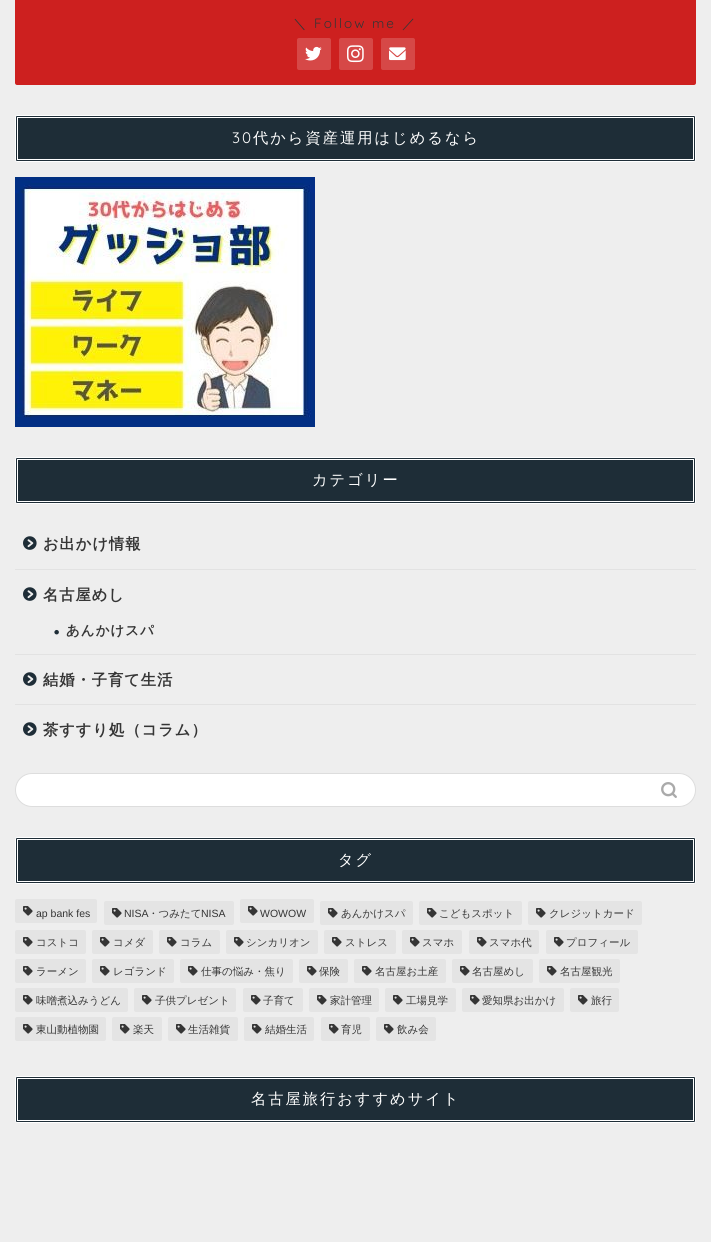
import math
import cairo

surface = cairo.ImageSurface(cairo.FORMAT_RGB24, 711, 1242)
cr = cairo.Context(surface)
options = cairo.FontOptions()
options.set_hint_metrics(cairo.HINT_METRICS_OFF)
options.set_hint_style(cairo.HINT_STYLE_NONE)
cr.set_font_options(options)
cr.set_miter_limit(4)


def rgb(code):
    cr.set_source_rgb(*(v / 255 for v in bytes.fromhex(code[-6:])))


def tracked(x, y, s, letter, word):
    cr.move_to(x, y)
    for ch in s:
        cr.show_text(ch)
        cr.rel_move_to(letter + word * (ch == ' '), 0)


def rrect(x, y, w, h, r):
    cr.new_sub_path()
    for i, (u, v) in enumerate([(x + w - r, y + h - r), (x + r, y + h - r), (x + r, y + r), (x + w - r, y + r)]):
        cr.arc(u, v, r, i * math.pi / 2, (i + 1) * math.pi / 2)
    cr.close_path()


def image(path, x, y, w, h):
    cr.save()
    cr.set_source_surface(cairo.ImageSurface.create_from_png(path), x, y)
    cr.rectangle(x, y, w, h)
    cr.fill()
    cr.restore()


rgb("#eeeeee")
cr.paint()
rgb("#cd201f")
cr.new_path()
cr.move_to(15, -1)
cr.line_to(696, -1)
cr.line_to(696, 83)
cr.curve_to(696, 84, 695, 85, 694, 85)
cr.line_to(17, 85)
cr.curve_to(16, 85, 15, 84, 15, 83)
cr.close_path()
cr.fill()
rgb("#d64847")
rrect(297, 38, 34, 32, 2)
cr.fill()
image("img/1.png", 305, 46, 17, 15)
rrect(339, 38, 34, 32, 2)
cr.fill()
image("img/2.png", 347, 45, 17, 18)
rrect(381, 38, 34, 32, 2)
cr.fill()
image("img/3.png", 389, 47, 17, 14)
rgb("#1e2d37")
rrect(15.5, 115.5, 680, 46, 1.5)
cr.fill_preserve()
rgb("#ffffff")
cr.set_line_width(1)
cr.stroke()
cr.rectangle(17.5, 117.5, 676, 42)
cr.stroke()
image("img/4.png", 15, 177, 300, 250)
rgb("#1e2d37")
rrect(15.5, 457.5, 680, 46, 1.5)
cr.fill_preserve()
rgb("#ffffff")
cr.stroke()
cr.rectangle(17.5, 459.5, 676, 42)
cr.stroke()
rgb("#e2e2e2")
cr.rectangle(15, 569, 681, 1)
cr.fill()
image("img/5.png", 23, 536, 14, 14)
cr.rectangle(15, 654, 681, 1)
cr.fill()
image("img/5.png", 23, 587, 14, 14)
cr.rectangle(15, 704, 681, 1)
cr.fill()
image("img/5.png", 23, 672, 14, 14)
image("img/5.png", 23, 722, 14, 14)
rgb("#ffffff")
rrect(15.5, 773.5, 680, 33, 16.5)
cr.fill_preserve()
rgb("#dddddd")
cr.stroke()
image("img/6.png", 661, 782, 16, 16)
rgb("#1e2d37")
rrect(15.5, 837.5, 680, 46, 1.5)
cr.fill_preserve()
rgb("#ffffff")
cr.stroke()
cr.rectangle(17.5, 839.5, 676, 42)
cr.stroke()
rgb("#e4e4e4")
rrect(15, 899, 82, 24, 2)
cr.fill()
image("img/7.png", 23, 906, 10, 10)
rrect(104, 901, 130, 24, 2)
cr.fill()
image("img/7.png", 112, 908, 10, 10)
rrect(240, 899, 74, 24, 2)
cr.fill()
image("img/7.png", 248, 906, 10, 10)
rrect(320, 901, 93, 24, 2)
cr.fill()
image("img/7.png", 328, 908, 10, 10)
rrect(419, 901, 103, 24, 2)
cr.fill()
image("img/7.png", 427, 908, 10, 10)
rrect(528, 901, 114, 24, 2)
cr.fill()
image("img/7.png", 536, 908, 10, 10)
rrect(15, 930, 71, 24, 2)
cr.fill()
image("img/7.png", 23, 937, 10, 10)
rrect(92, 930, 61, 24, 2)
cr.fill()
image("img/7.png", 100, 937, 10, 10)
rrect(159, 930, 61, 24, 2)
cr.fill()
image("img/7.png", 167, 937, 10, 10)
rrect(226, 930, 92, 24, 2)
cr.fill()
image("img/7.png", 234, 937, 10, 10)
rrect(324, 930, 72, 24, 2)
cr.fill()
image("img/7.png", 332, 937, 10, 10)
rrect(402, 930, 60, 24, 2)
cr.fill()
image("img/7.png", 410, 937, 10, 10)
rrect(469, 930, 70, 24, 2)
cr.fill()
image("img/7.png", 477, 937, 10, 10)
rrect(546, 930, 92, 24, 2)
cr.fill()
image("img/7.png", 554, 937, 10, 10)
rrect(15, 959, 71, 24, 2)
cr.fill()
image("img/7.png", 23, 966, 10, 10)
rrect(92, 959, 82, 24, 2)
cr.fill()
image("img/7.png", 100, 966, 10, 10)
rrect(180, 959, 113, 24, 2)
cr.fill()
image("img/7.png", 188, 966, 10, 10)
rrect(299, 959, 49, 24, 2)
cr.fill()
image("img/7.png", 307, 966, 10, 10)
rrect(354, 959, 92, 24, 2)
cr.fill()
image("img/7.png", 362, 966, 10, 10)
rrect(452, 959, 81, 24, 2)
cr.fill()
image("img/7.png", 460, 966, 10, 10)
rrect(539, 959, 81, 24, 2)
cr.fill()
image("img/7.png", 547, 966, 10, 10)
rrect(15, 988, 113, 24, 2)
cr.fill()
image("img/7.png", 23, 995, 10, 10)
rrect(134, 988, 102, 24, 2)
cr.fill()
image("img/7.png", 142, 995, 10, 10)
rrect(243, 988, 60, 24, 2)
cr.fill()
image("img/7.png", 251, 995, 10, 10)
rrect(309, 988, 70, 24, 2)
cr.fill()
image("img/7.png", 317, 995, 10, 10)
rrect(385, 988, 71, 24, 2)
cr.fill()
image("img/7.png", 393, 995, 10, 10)
rrect(462, 988, 102, 24, 2)
cr.fill()
image("img/7.png", 470, 995, 10, 10)
rrect(570, 988, 49, 24, 2)
cr.fill()
image("img/7.png", 578, 995, 10, 10)
rrect(15, 1017, 91, 24, 2)
cr.fill()
image("img/7.png", 23, 1024, 10, 10)
rrect(112, 1017, 50, 24, 2)
cr.fill()
image("img/7.png", 120, 1024, 10, 10)
rrect(168, 1017, 70, 24, 2)
cr.fill()
image("img/7.png", 176, 1024, 10, 10)
rrect(244, 1017, 70, 24, 2)
cr.fill()
image("img/7.png", 252, 1024, 10, 10)
rrect(321, 1017, 49, 24, 2)
cr.fill()
image("img/7.png", 329, 1024, 10, 10)
rrect(376, 1017, 60, 24, 2)
cr.fill()
image("img/7.png", 384, 1024, 10, 10)
rgb("#1e2d37")
rrect(15.5, 1076.5, 680, 46, 1.5)
cr.fill_preserve()
rgb("#ffffff")
cr.stroke()
cr.rectangle(17.5, 1078.5, 676, 42)
cr.stroke()
cr.select_font_face("WenQuanYi Zen Hei Medium")
cr.set_font_size(13.5)
rgb("#353535")
tracked(293, 28, "＼", 2, 0)
cr.select_font_face("Quicksand Light")
tracked(314, 28, "Follow me", 2, 0)
cr.select_font_face("WenQuanYi Zen Hei Medium")
tracked(402, 28, "／", 2, 0)
cr.select_font_face("Quicksand Light")
cr.set_font_size(15.25)
rgb("#ffffff")
tracked(232, 143, "30", 2, 0)
cr.select_font_face("WenQuanYi Zen Hei Medium")
tracked(253, 143, "代から資産運用はじめるなら", 2, 0)
tracked(312, 485, "カテゴリー", 2, 0)
cr.select_font_face("WenQuanYi Zen Hei", cairo.FONT_SLANT_NORMAL, cairo.FONT_WEIGHT_BOLD)
rgb("#353535")
tracked(43, 549, "お出かけ情報", 1, 0)
tracked(43, 600, "名古屋めし", 1, 0)
cr.set_font_size(24)
rgb("#1e2d37")
tracked(44, 641, "・", 1, 0)
cr.set_font_size(13.5)
rgb("#353535")
tracked(66, 635, "あんかけスパ", 1, 0)
cr.set_font_size(15.25)
tracked(43, 685, "結婚・子育て生活", 1, 0)
tracked(43, 735, "茶すすり処（コラム）", 1, 0)
cr.select_font_face("WenQuanYi Zen Hei Medium")
rgb("#ffffff")
tracked(338, 865, "タグ", 2, 0)
cr.select_font_face("Liberation Sans")
cr.set_font_size(10.5)
rgb("#353535")
cr.move_to(36, 917)
cr.show_text("ap bank fes")
cr.move_to(124, 917)
cr.show_text("NISA")
cr.select_font_face("WenQuanYi Zen Hei Medium")
cr.move_to(148, 917)
cr.show_text("・つみたて")
cr.select_font_face("Liberation Sans")
cr.move_to(201, 917)
cr.show_text("NISA")
cr.move_to(260, 917)
cr.show_text("WOWOW")
cr.select_font_face("WenQuanYi Zen Hei Medium")
for x, y, s in [
    (341, 917, "あんかけスパ"),
    (439, 917, "こどもスポット"),
    (549, 917, "クレジットカード"),
    (36, 946, "コストコ"),
    (113, 946, "コメダ"),
    (180, 946, "コラム"),
    (246, 946, "シンカリオン"),
    (345, 946, "ストレス"),
    (422, 946, "スマホ"),
    (489, 946, "スマホ代"),
    (566, 946, "プロフィール"),
    (36, 975, "ラーメン"),
    (113, 975, "レゴランド"),
    (201, 975, "仕事の悩み・焦り"),
    (319, 975, "保険"),
    (375, 975, "名古屋お土産"),
    (472, 975, "名古屋めし"),
    (560, 975, "名古屋観光"),
    (36, 1004, "味噌煮込みうどん"),
    (155, 1004, "子供プレゼント"),
    (263, 1004, "子育て"),
    (330, 1004, "家計管理"),
    (406, 1004, "工場見学"),
    (482, 1004, "愛知県お出かけ"),
    (591, 1004, "旅行"),
    (36, 1033, "東山動植物園"),
    (133, 1033, "楽天"),
    (188, 1033, "生活雑貨"),
    (265, 1033, "結婚生活"),
    (341, 1033, "育児"),
    (397, 1033, "飲み会"),
]:
    cr.move_to(x, y)
    cr.show_text(s)
cr.set_font_size(15.25)
rgb("#ffffff")
tracked(251, 1104, "名古屋旅行おすすめサイト", 2, 0)
surface.write_to_png("page.png")
